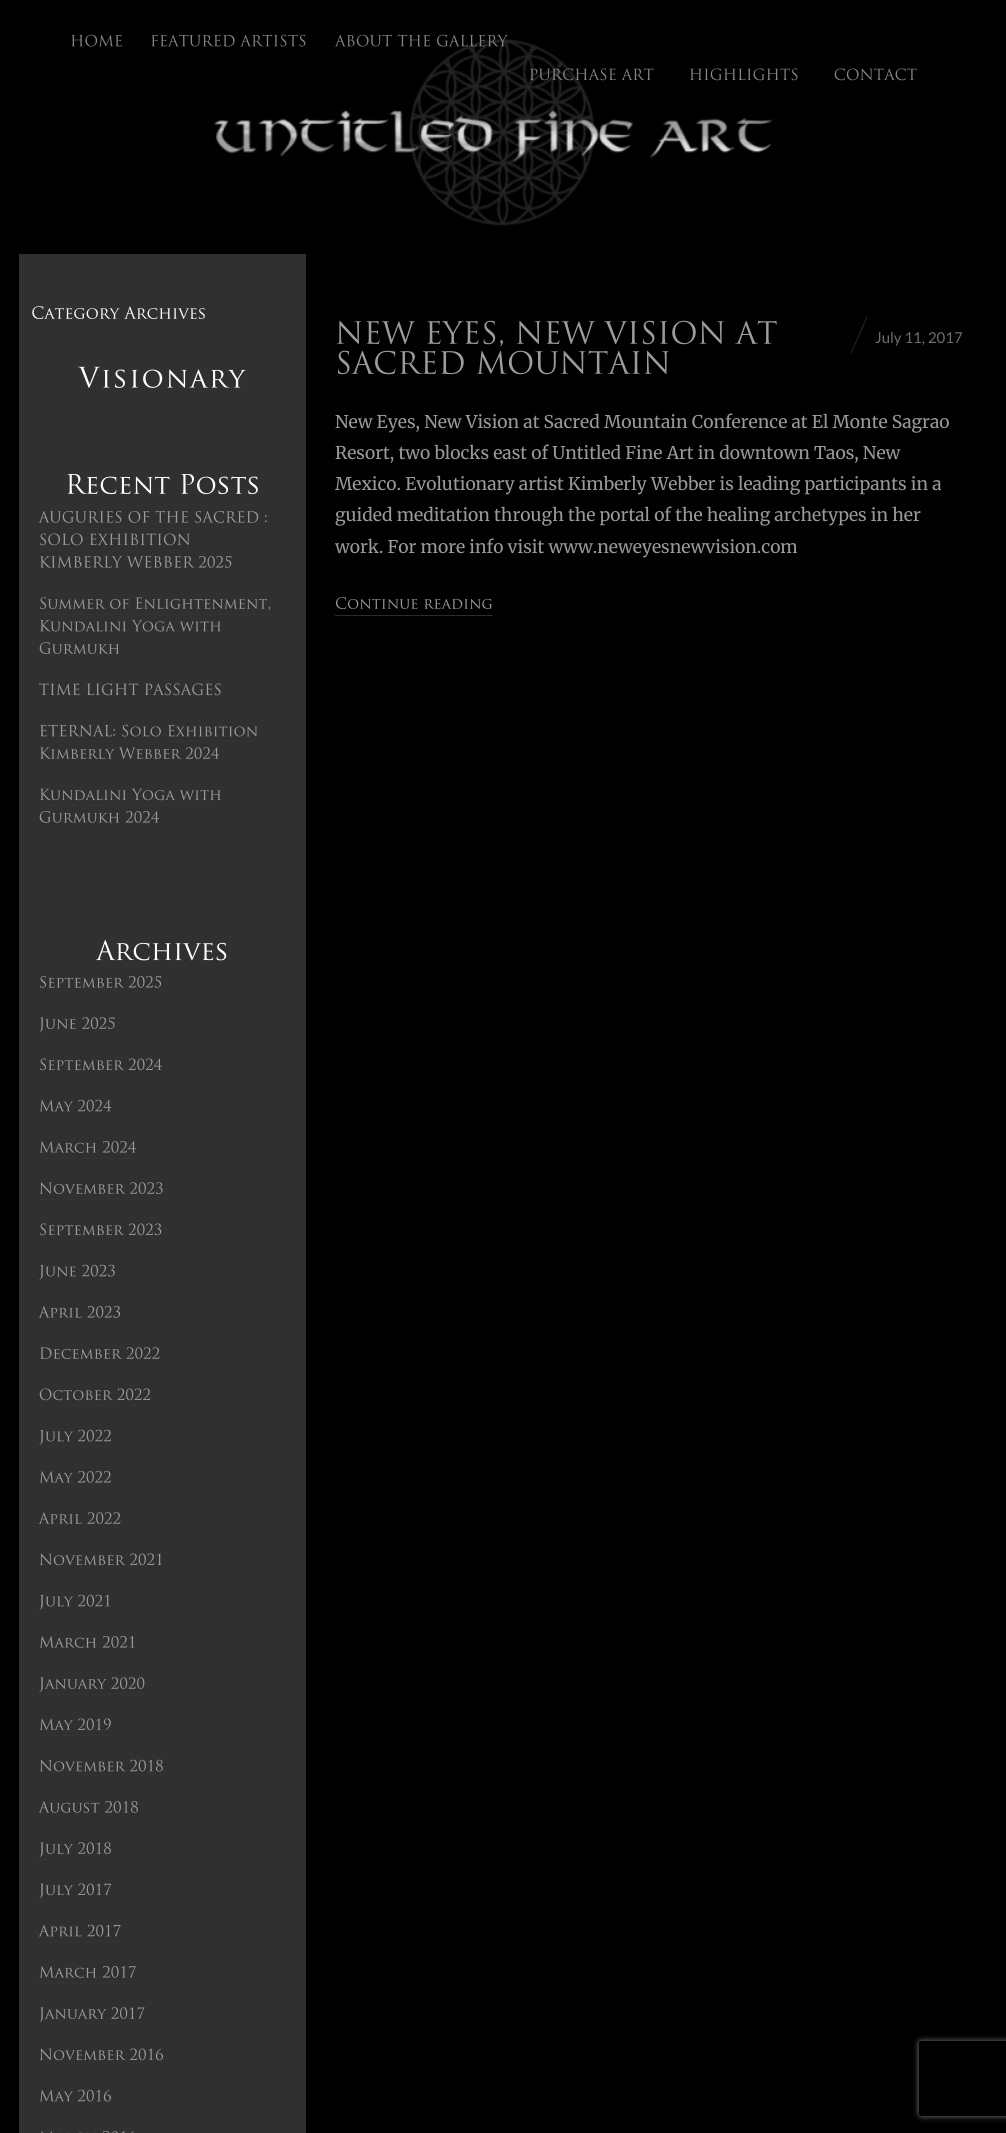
import math
import cairo

surface = cairo.ImageSurface(cairo.FORMAT_RGB24, 1006, 2133)
cr = cairo.Context(surface)
options = cairo.FontOptions()
options.set_hint_metrics(cairo.HINT_METRICS_OFF)
options.set_hint_style(cairo.HINT_STYLE_NONE)
cr.set_font_options(options)
cr.set_miter_limit(4)


def rgb(code):
    cr.set_source_rgb(*(v / 255 for v in bytes.fromhex(code[-6:])))


def rrect(x, y, w, h, r):
    cr.new_sub_path()
    for i, (u, v) in enumerate([(x + w - r, y + h - r), (x + r, y + h - r), (x + r, y + r), (x + w - r, y + r)]):
        cr.arc(u, v, r, i * math.pi / 2, (i + 1) * math.pi / 2)
    cr.close_path()


def soft_shadow(x, y, w, h, r, blur, alpha):
    cr.push_group_with_content(cairo.CONTENT_ALPHA)
    cr.set_operator(cairo.OPERATOR_SOURCE)
    for i in range(15, -16, -2):
        e = blur * i / 6
        if min(w, h) + 2 * e > 0:
            cr.set_source_rgba(0, 0, 0, alpha * math.erfc((i - 1) / 8.5) / 2)
            rrect(x - e, y - e, w + 2 * e, h + 2 * e, max(0, min(r + e + blur * .6, min(w, h) / 2 + e)))
            cr.fill()
    cr.mask(cr.pop_group())


def image(path, x, y, w, h):
    cr.save()
    cr.set_source_surface(cairo.ImageSurface.create_from_png(path), x, y)
    cr.rectangle(x, y, w, h)
    cr.fill()
    cr.restore()


rgb("#000000")
cr.paint()
image("img/1.png", 71, 34, 51, 13)
image("img/7.png", 214, 39, 559, 187)
image("img/2.png", 151, 34, 155, 13)
image("img/3.png", 334, 34, 174, 13)
image("img/4.png", 530, 68, 124, 13)
image("img/5.png", 690, 68, 108, 13)
image("img/6.png", 834, 68, 83, 13)
rgb("#303030")
cr.rectangle(19, 254, 287, 1879)
cr.fill()
image("img/8.png", 32, 306, 173, 13)
image("img/9.png", 78, 366, 168, 22)
image("img/10.png", 67, 474, 191, 21)
image("img/11.png", 38, 511, 229, 12)
rgb("#333333")
cr.rectangle(39, 528, 229, 1)
cr.fill()
image("img/12.png", 40, 533, 150, 13)
cr.rectangle(39, 550, 152, 1)
cr.fill()
image("img/13.png", 40, 556, 192, 12)
cr.rectangle(39, 573, 194, 1)
cr.fill()
image("img/14.png", 40, 597, 231, 13)
cr.rectangle(39, 614, 232, 1)
cr.fill()
image("img/15.png", 40, 619, 181, 13)
cr.rectangle(39, 636, 182, 1)
cr.fill()
image("img/16.png", 39, 642, 80, 12)
cr.rectangle(39, 659, 81, 1)
cr.fill()
image("img/17.png", 39, 683, 182, 13)
cr.rectangle(39, 700, 184, 1)
cr.fill()
image("img/18.png", 40, 724, 218, 13)
cr.rectangle(39, 741, 220, 1)
cr.fill()
image("img/19.png", 40, 747, 179, 12)
cr.rectangle(39, 764, 181, 1)
cr.fill()
image("img/20.png", 40, 788, 181, 13)
cr.rectangle(39, 805, 182, 1)
cr.fill()
image("img/21.png", 39, 811, 120, 12)
cr.rectangle(39, 828, 121, 1)
cr.fill()
image("img/22.png", 95, 939, 132, 22)
image("img/23.png", 40, 976, 122, 12)
cr.rectangle(39, 993, 124, 1)
cr.fill()
image("img/24.png", 39, 1017, 76, 16)
cr.rectangle(39, 1034, 77, 1)
cr.fill()
image("img/25.png", 40, 1058, 122, 13)
cr.rectangle(39, 1075, 124, 1)
cr.fill()
image("img/26.png", 39, 1099, 73, 13)
cr.rectangle(39, 1116, 72, 1)
cr.fill()
image("img/27.png", 39, 1141, 97, 12)
cr.rectangle(39, 1158, 97, 1)
cr.fill()
image("img/28.png", 40, 1182, 123, 12)
cr.rectangle(39, 1199, 125, 1)
cr.fill()
image("img/29.png", 40, 1223, 122, 13)
cr.rectangle(39, 1240, 124, 1)
cr.fill()
image("img/30.png", 39, 1264, 76, 16)
cr.rectangle(39, 1281, 77, 1)
cr.fill()
image("img/31.png", 38, 1306, 83, 12)
cr.rectangle(39, 1323, 82, 1)
cr.fill()
image("img/32.png", 40, 1347, 120, 12)
cr.rectangle(39, 1364, 121, 1)
cr.fill()
image("img/33.png", 39, 1388, 112, 13)
cr.rectangle(39, 1405, 112, 1)
cr.fill()
image("img/34.png", 39, 1429, 72, 16)
cr.rectangle(39, 1446, 72, 1)
cr.fill()
image("img/35.png", 39, 1471, 72, 12)
cr.rectangle(39, 1488, 72, 1)
cr.fill()
image("img/36.png", 38, 1512, 83, 12)
cr.rectangle(39, 1529, 82, 1)
cr.fill()
image("img/37.png", 40, 1553, 122, 13)
cr.rectangle(39, 1570, 125, 1)
cr.fill()
image("img/38.png", 39, 1594, 71, 16)
cr.rectangle(39, 1611, 72, 1)
cr.fill()
image("img/39.png", 39, 1636, 96, 12)
cr.rectangle(39, 1653, 97, 1)
cr.fill()
image("img/40.png", 39, 1677, 106, 16)
cr.rectangle(39, 1694, 106, 1)
cr.fill()
image("img/41.png", 39, 1718, 72, 13)
cr.rectangle(39, 1735, 72, 1)
cr.fill()
image("img/42.png", 40, 1759, 123, 13)
cr.rectangle(39, 1776, 125, 1)
cr.fill()
image("img/43.png", 38, 1801, 100, 12)
cr.rectangle(39, 1818, 100, 1)
cr.fill()
image("img/44.png", 39, 1842, 72, 16)
cr.rectangle(39, 1859, 72, 1)
cr.fill()
image("img/45.png", 39, 1883, 73, 16)
cr.rectangle(39, 1900, 72, 1)
cr.fill()
image("img/46.png", 38, 1924, 83, 13)
cr.rectangle(39, 1941, 82, 1)
cr.fill()
image("img/47.png", 39, 1966, 97, 12)
cr.rectangle(39, 1983, 97, 1)
cr.fill()
image("img/48.png", 39, 2007, 106, 16)
cr.rectangle(39, 2024, 106, 1)
cr.fill()
image("img/49.png", 40, 2048, 123, 13)
cr.rectangle(39, 2065, 125, 1)
cr.fill()
image("img/50.png", 39, 2089, 72, 13)
cr.rectangle(39, 2106, 72, 1)
cr.fill()
image("img/51.png", 41, 2131, 94, 2)
image("img/52.png", 337, 320, 440, 27)
image("img/53.png", 338, 350, 331, 25)
image("img/54.png", 850, 316, 18, 38)
image("img/55.png", 336, 597, 156, 12)
rgb("#2b2b2b")
cr.rectangle(335, 615, 158, 1)
cr.fill()
cr.save()
cr.set_fill_rule(cairo.FILL_RULE_EVEN_ODD)
cr.new_path()
cr.move_to(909, 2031)
cr.line_to(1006, 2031)
cr.line_to(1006, 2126)
cr.line_to(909, 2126)
cr.close_path()
cr.move_to(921.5, 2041)
cr.line_to(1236.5, 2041)
cr.curve_to(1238, 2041, 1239, 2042, 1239, 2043.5)
cr.line_to(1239, 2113.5)
cr.curve_to(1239, 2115, 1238, 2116, 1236.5, 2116)
cr.line_to(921.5, 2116)
cr.curve_to(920, 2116, 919, 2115, 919, 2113.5)
cr.line_to(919, 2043.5)
cr.curve_to(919, 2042, 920, 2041, 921.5, 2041)
cr.close_path()
cr.clip()
rgb("#808080")
soft_shadow(919, 2041, 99, 75, 2.5, 3, 1)
cr.restore()
cr.select_font_face("Lato")
cr.set_font_size(15)
rgb("#6e6e6e")
cr.move_to(875, 343)
cr.show_text("July 11, 2017")
cr.select_font_face("Merriweather Light")
cr.set_font_size(17.5)
rgb("#999999")
for x, y, s in [
    (335, 428, "New Eyes, New Vision at Sacred Mountain Conference at El Monte Sagrao"),
    (335, 459, "Resort, two blocks east of Untitled Fine Art in downtown Taos, New"),
    (335, 490, "Mexico. Evolutionary artist Kimberly Webber is leading participants in a"),
    (335, 521, "guided meditation through the portal of the healing archetypes in her"),
    (335, 553, "work. For more info visit www.neweyesnewvision.com"),
]:
    cr.move_to(x, y)
    cr.show_text(s)
surface.write_to_png("page.png")
